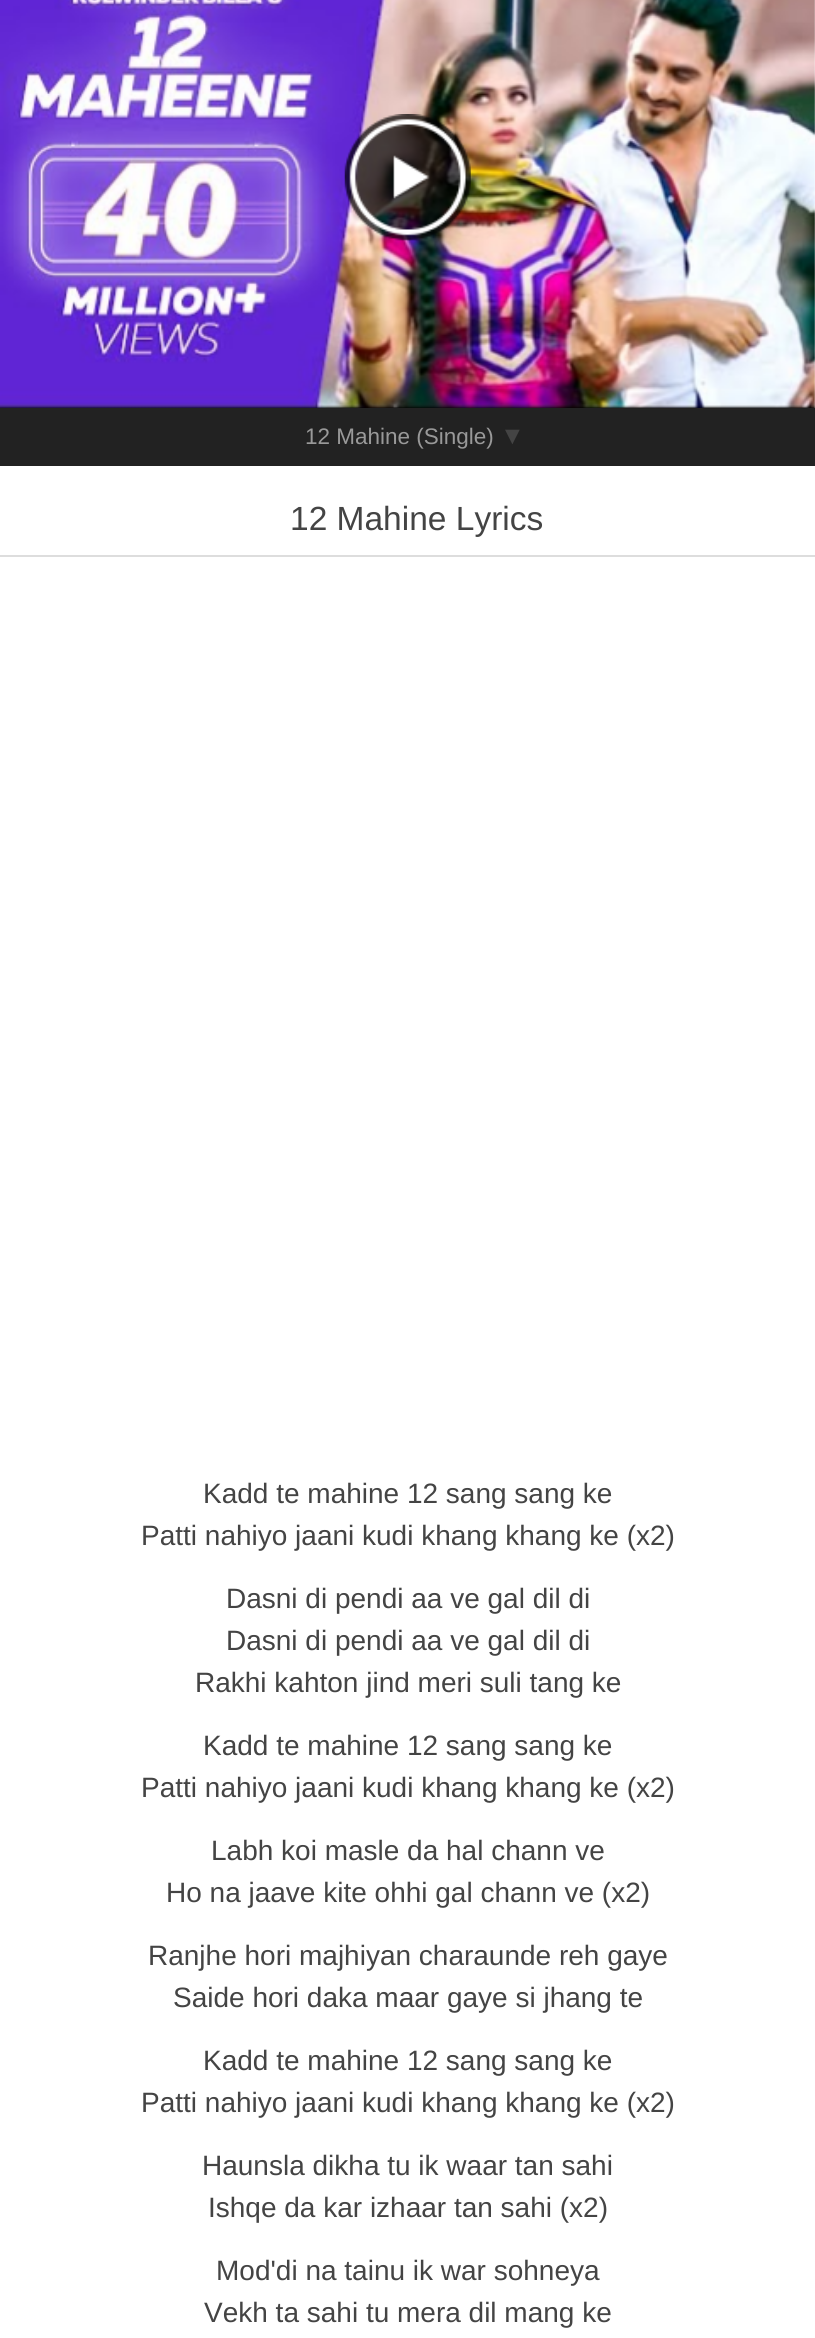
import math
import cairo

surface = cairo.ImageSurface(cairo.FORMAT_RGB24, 815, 2338)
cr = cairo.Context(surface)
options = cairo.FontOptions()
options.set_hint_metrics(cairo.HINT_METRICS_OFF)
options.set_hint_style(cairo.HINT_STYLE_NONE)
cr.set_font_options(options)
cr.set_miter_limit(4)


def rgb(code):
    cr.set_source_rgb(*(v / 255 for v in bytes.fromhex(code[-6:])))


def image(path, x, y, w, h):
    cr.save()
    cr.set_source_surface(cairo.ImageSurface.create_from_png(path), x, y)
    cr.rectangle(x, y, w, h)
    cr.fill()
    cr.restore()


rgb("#ffffff")
cr.paint()
image("img/1.png", 0, 0, 815, 408)
image("img/2.png", 344, 114, 127, 127)
rgb("#222222")
cr.rectangle(0, 408, 815, 58)
cr.fill()
rgb("#dddddd")
cr.rectangle(0, 555, 815, 2)
cr.fill()
cr.select_font_face("Liberation Sans")
cr.set_font_size(22.5)
rgb("#999999")
cr.move_to(305, 444)
cr.show_text("12 Mahine (Single)")
cr.set_font_size(25)
rgb("#444444")
cr.move_to(500, 444)
cr.show_text("▼")
cr.set_font_size(33.5)
cr.move_to(290, 530)
cr.show_text("12 Mahine Lyrics")
cr.set_font_size(28)
for x, y, s in [
    (203, 1503, "Kadd te mahine 12 sang sang ke"),
    (141, 1545, "Patti nahiyo jaani kudi khang khang ke (x2)"),
    (226, 1608, "Dasni di pendi aa ve gal dil di"),
    (226, 1650, "Dasni di pendi aa ve gal dil di"),
    (195, 1692, "Rakhi kahton jind meri suli tang ke"),
    (203, 1755, "Kadd te mahine 12 sang sang ke"),
    (141, 1797, "Patti nahiyo jaani kudi khang khang ke (x2)"),
    (211, 1860, "Labh koi masle da hal chann ve"),
    (166, 1902, "Ho na jaave kite ohhi gal chann ve (x2)"),
    (148, 1965, "Ranjhe hori majhiyan charaunde reh gaye"),
    (173, 2007, "Saide hori daka maar gaye si jhang te"),
    (203, 2070, "Kadd te mahine 12 sang sang ke"),
    (141, 2112, "Patti nahiyo jaani kudi khang khang ke (x2)"),
    (202, 2175, "Haunsla dikha tu ik waar tan sahi"),
    (208, 2217, "Ishqe da kar izhaar tan sahi (x2)"),
    (216, 2280, "Mod'di na tainu ik war sohneya"),
    (204, 2322, "Vekh ta sahi tu mera dil mang ke"),
]:
    cr.move_to(x, y)
    cr.show_text(s)
surface.write_to_png("page.png")
